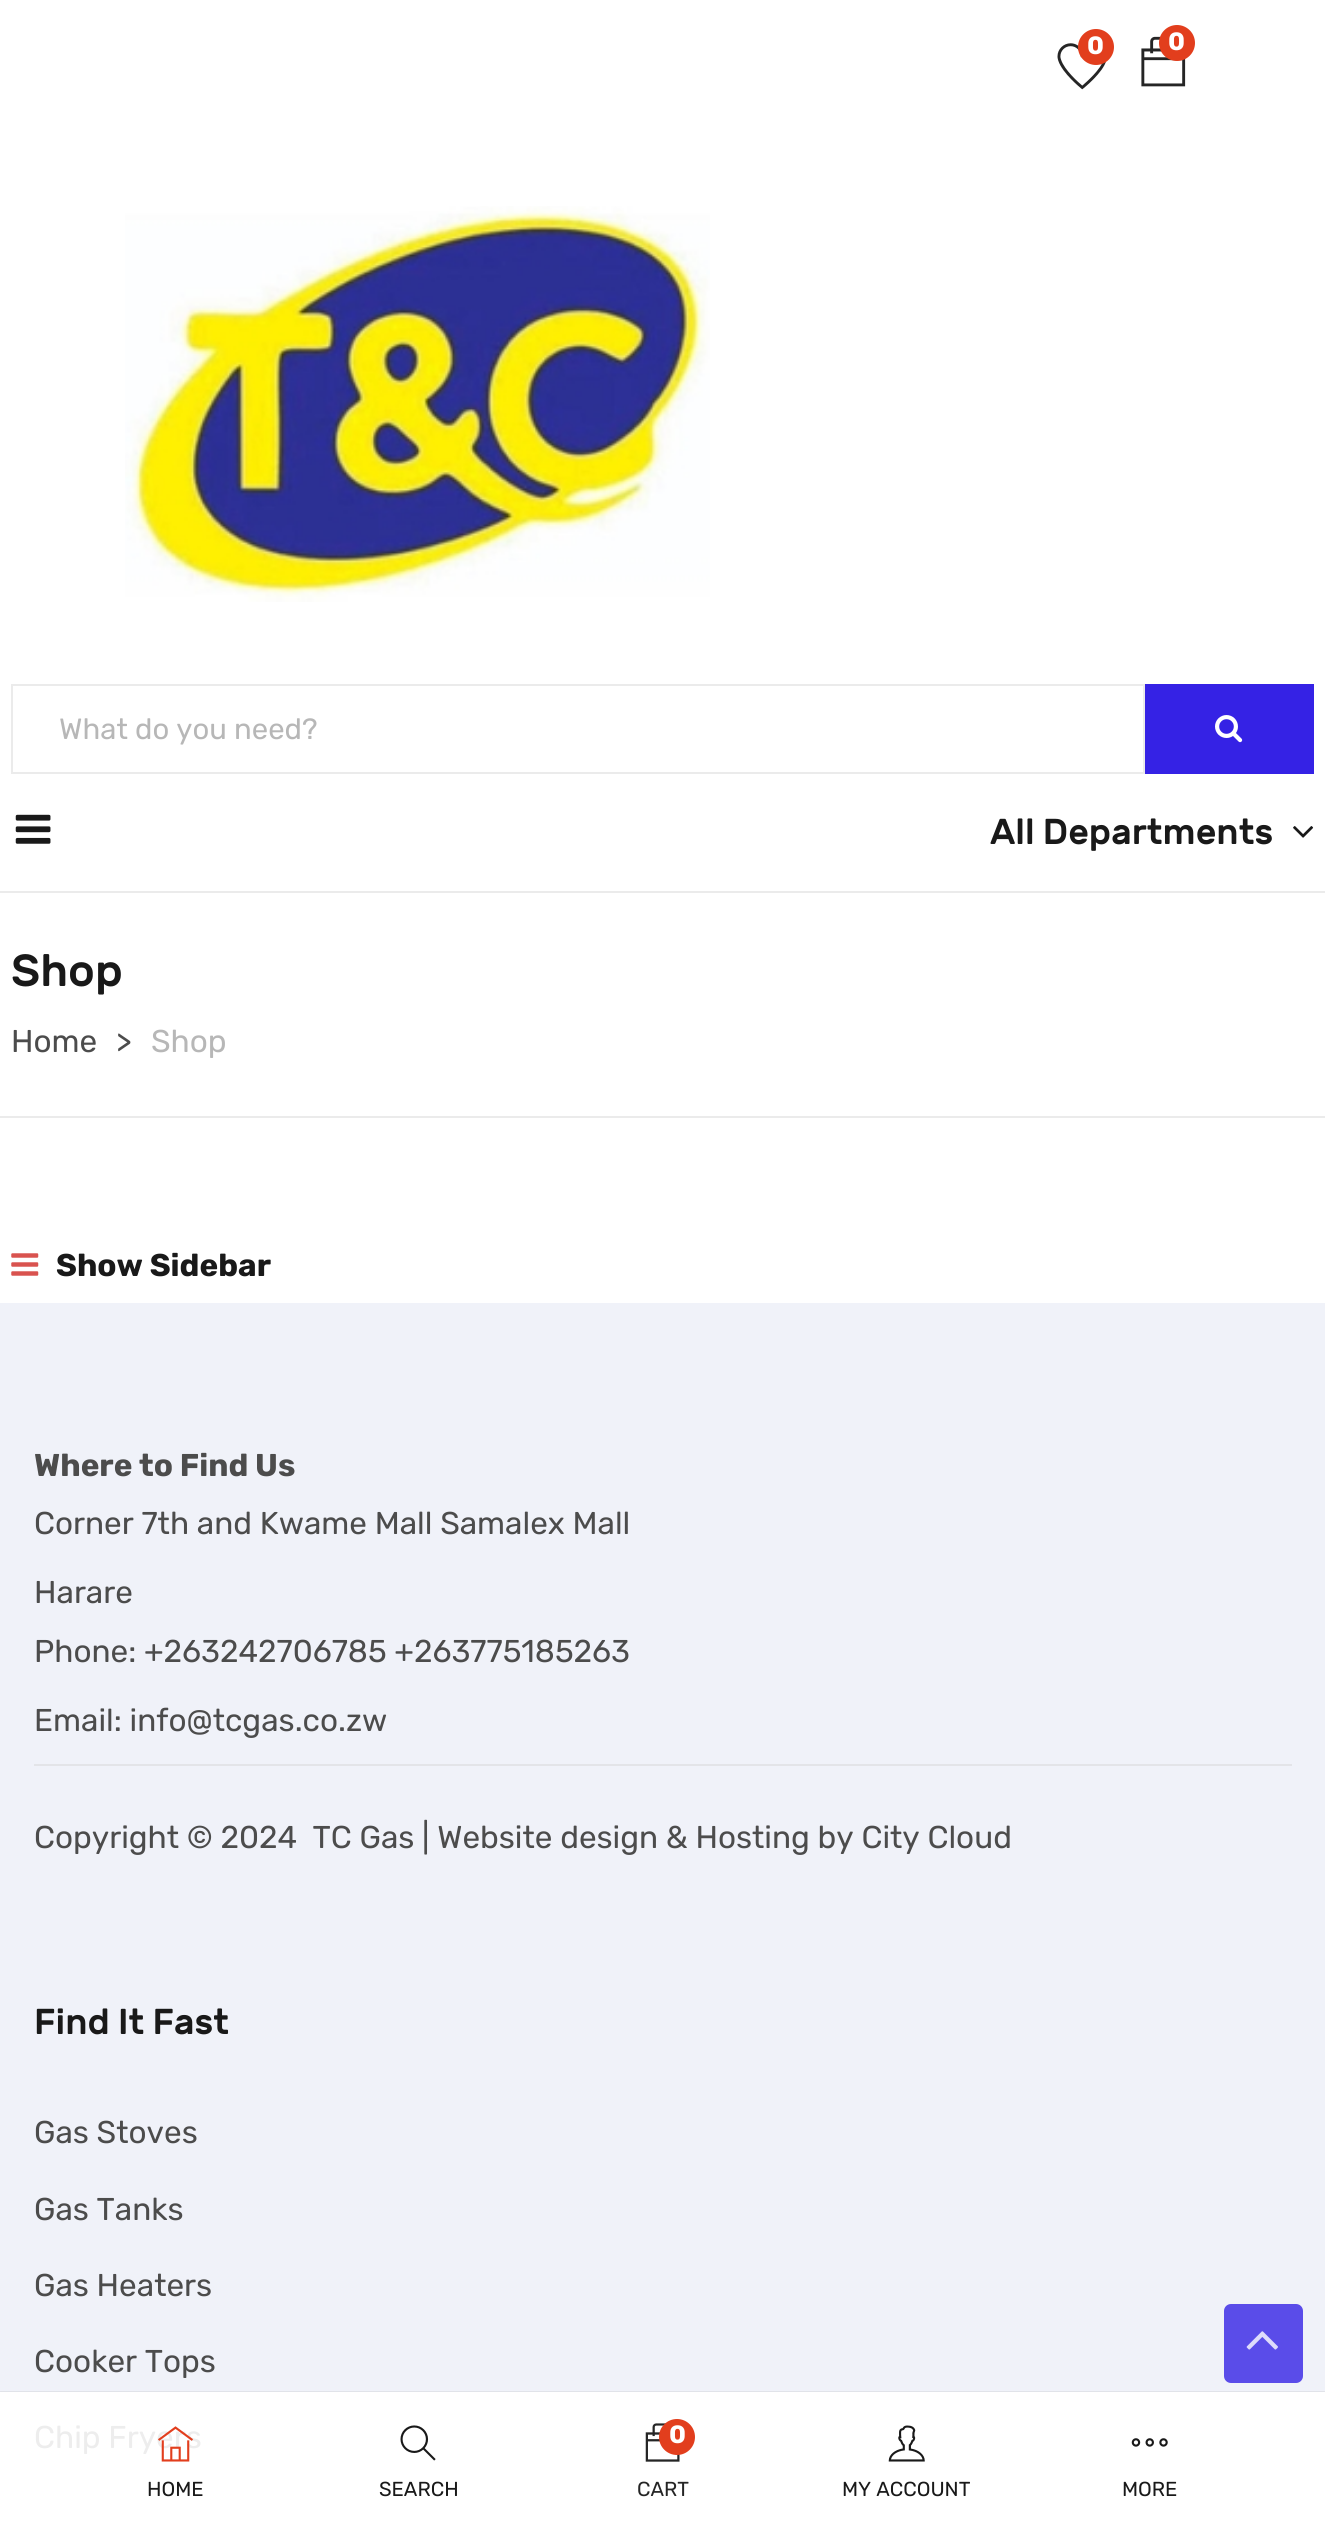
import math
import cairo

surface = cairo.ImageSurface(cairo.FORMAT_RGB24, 1325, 2540)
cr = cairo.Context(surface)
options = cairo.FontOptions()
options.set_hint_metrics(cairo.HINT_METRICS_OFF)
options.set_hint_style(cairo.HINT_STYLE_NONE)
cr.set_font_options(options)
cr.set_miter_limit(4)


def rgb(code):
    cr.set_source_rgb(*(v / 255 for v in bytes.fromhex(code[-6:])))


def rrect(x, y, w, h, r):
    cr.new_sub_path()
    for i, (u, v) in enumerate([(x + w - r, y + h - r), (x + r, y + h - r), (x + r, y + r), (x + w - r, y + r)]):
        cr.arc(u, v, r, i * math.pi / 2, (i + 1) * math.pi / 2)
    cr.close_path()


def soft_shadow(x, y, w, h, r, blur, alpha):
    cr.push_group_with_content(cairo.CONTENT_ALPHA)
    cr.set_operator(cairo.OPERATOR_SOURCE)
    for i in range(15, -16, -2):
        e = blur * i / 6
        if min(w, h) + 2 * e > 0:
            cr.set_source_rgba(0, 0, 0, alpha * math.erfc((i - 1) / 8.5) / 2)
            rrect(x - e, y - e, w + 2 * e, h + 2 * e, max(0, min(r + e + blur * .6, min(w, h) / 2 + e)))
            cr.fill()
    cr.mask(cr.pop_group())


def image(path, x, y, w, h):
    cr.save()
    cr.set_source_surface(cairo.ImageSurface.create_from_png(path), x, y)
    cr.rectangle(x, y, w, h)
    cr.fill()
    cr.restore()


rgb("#ffffff")
cr.paint()
image("img/1.png", 1057, 43, 49, 47)
rgb("#e23e1d")
cr.arc(1096, 47, 18, 0, 2 * math.pi)
cr.fill()
image("img/2.png", 1141, 36, 45, 51)
cr.arc(1177, 43, 18, 0, 2 * math.pi)
cr.fill()
image("img/3.png", 125, 206, 585, 396)
cr.rectangle(12, 685, 1132, 88)
rgb("#ebebeb")
cr.stroke()
rgb("#3522e5")
cr.rectangle(1145, 684, 169, 90)
cr.fill()
image("img/4.png", 1215, 715, 28, 28)
rgb("#ebebeb")
cr.rectangle(0, 891, 1325, 2)
cr.fill()
image("img/5.png", 15, 814, 36, 30)
image("img/6.png", 1293, 826, 21, 12)
cr.rectangle(0, 1116, 1325, 2)
cr.fill()
image("img/7.png", 11, 1253, 28, 23)
rgb("#f0f2f9")
cr.rectangle(0, 1303, 1325, 1089)
cr.fill()
rgb("#e3e4e8")
cr.rectangle(34, 1764, 1258, 2)
cr.fill()
rgb("#5a4ce9")
rrect(1224, 2304, 79, 79, 7)
cr.fill()
image("img/8.png", 1246, 2331, 32, 19)
cr.save()
cr.rectangle(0, 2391, 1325, 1)
cr.clip()
rgb("#000000")
soft_shadow(0, 2392, 1325, 148, 0, 1, 0.2)
cr.restore()
image("img/10.png", 400, 2425, 36, 36)
image("img/11.png", 645, 2423, 35, 39)
rgb("#e23e1d")
cr.arc(677, 2437, 18, 0, 2 * math.pi)
cr.fill()
image("img/12.png", 888, 2425, 37, 37)
image("img/13.png", 1131, 2438, 37, 9)
cr.select_font_face("Rubik", cairo.FONT_SLANT_NORMAL, cairo.FONT_WEIGHT_BOLD)
cr.set_font_size(25)
rgb("#ffffff")
cr.move_to(1087, 54)
cr.show_text("0")
cr.move_to(1168, 50)
cr.show_text("0")
cr.select_font_face("Rubik")
cr.set_font_size(29.25)
rgb("#b7b7b7")
cr.move_to(59, 739)
cr.show_text("What do you need?")
cr.select_font_face("Rubik Medium")
cr.set_font_size(36)
rgb("#191919")
cr.move_to(990, 844)
cr.show_text("All Departments")
cr.set_font_size(45)
cr.move_to(11, 986)
cr.show_text("Shop")
cr.select_font_face("Rubik")
cr.set_font_size(31.5)
rgb("#4c4c4c")
cr.move_to(11, 1052)
cr.show_text("Home")
cr.move_to(116, 1052)
cr.show_text(">")
rgb("#b7b7b7")
cr.move_to(151, 1052)
cr.show_text("Shop")
cr.select_font_face("Rubik", cairo.FONT_SLANT_NORMAL, cairo.FONT_WEIGHT_BOLD)
rgb("#191919")
cr.move_to(56, 1276)
cr.show_text("Show Sidebar")
rgb("#4c4c4c")
cr.move_to(34, 1476)
cr.show_text("Where to Find Us")
cr.select_font_face("Rubik")
for x, y, s in [
    (34, 1534, "Corner 7th and Kwame Mall Samalex Mall"),
    (34, 1603, "Harare"),
    (34, 1662, "Phone: +263242706785 +263775185263"),
    (34, 1731, "Email: info@tcgas.co.zw"),
    (34, 1848, "Copyright © 2024  TC Gas | Website design & Hosting by City Cloud"),
]:
    cr.move_to(x, y)
    cr.show_text(s)
cr.select_font_face("Rubik Medium")
cr.set_font_size(36)
rgb("#191919")
cr.move_to(34, 2034)
cr.show_text("Find It Fast")
cr.select_font_face("Rubik")
cr.set_font_size(31.5)
rgb("#4c4c4c")
for x, y, s in [
    (34, 2143, "Gas Stoves"),
    (34, 2220, "Gas Tanks"),
    (34, 2296, "Gas Heaters"),
    (34, 2372, "Cooker Tops"),
]:
    cr.move_to(x, y)
    cr.show_text(s)
rgb("#ededed")
cr.move_to(34, 2448)
cr.show_text("Chip Fryers")
image("img/9.png", 158, 2426, 35, 36)
cr.set_font_size(20.25)
rgb("#191919")
cr.move_to(147, 2496)
cr.show_text("HOME")
cr.move_to(379, 2496)
cr.show_text("SEARCH")
cr.select_font_face("Rubik", cairo.FONT_SLANT_NORMAL, cairo.FONT_WEIGHT_BOLD)
cr.set_font_size(25)
rgb("#ffffff")
cr.move_to(669, 2443)
cr.show_text("0")
cr.select_font_face("Rubik")
cr.set_font_size(20.25)
rgb("#252525")
cr.move_to(637, 2496)
cr.show_text("CART")
rgb("#191919")
cr.move_to(842, 2496)
cr.show_text("MY ACCOUNT")
cr.move_to(1122, 2496)
cr.show_text("MORE")
surface.write_to_png("page.png")
